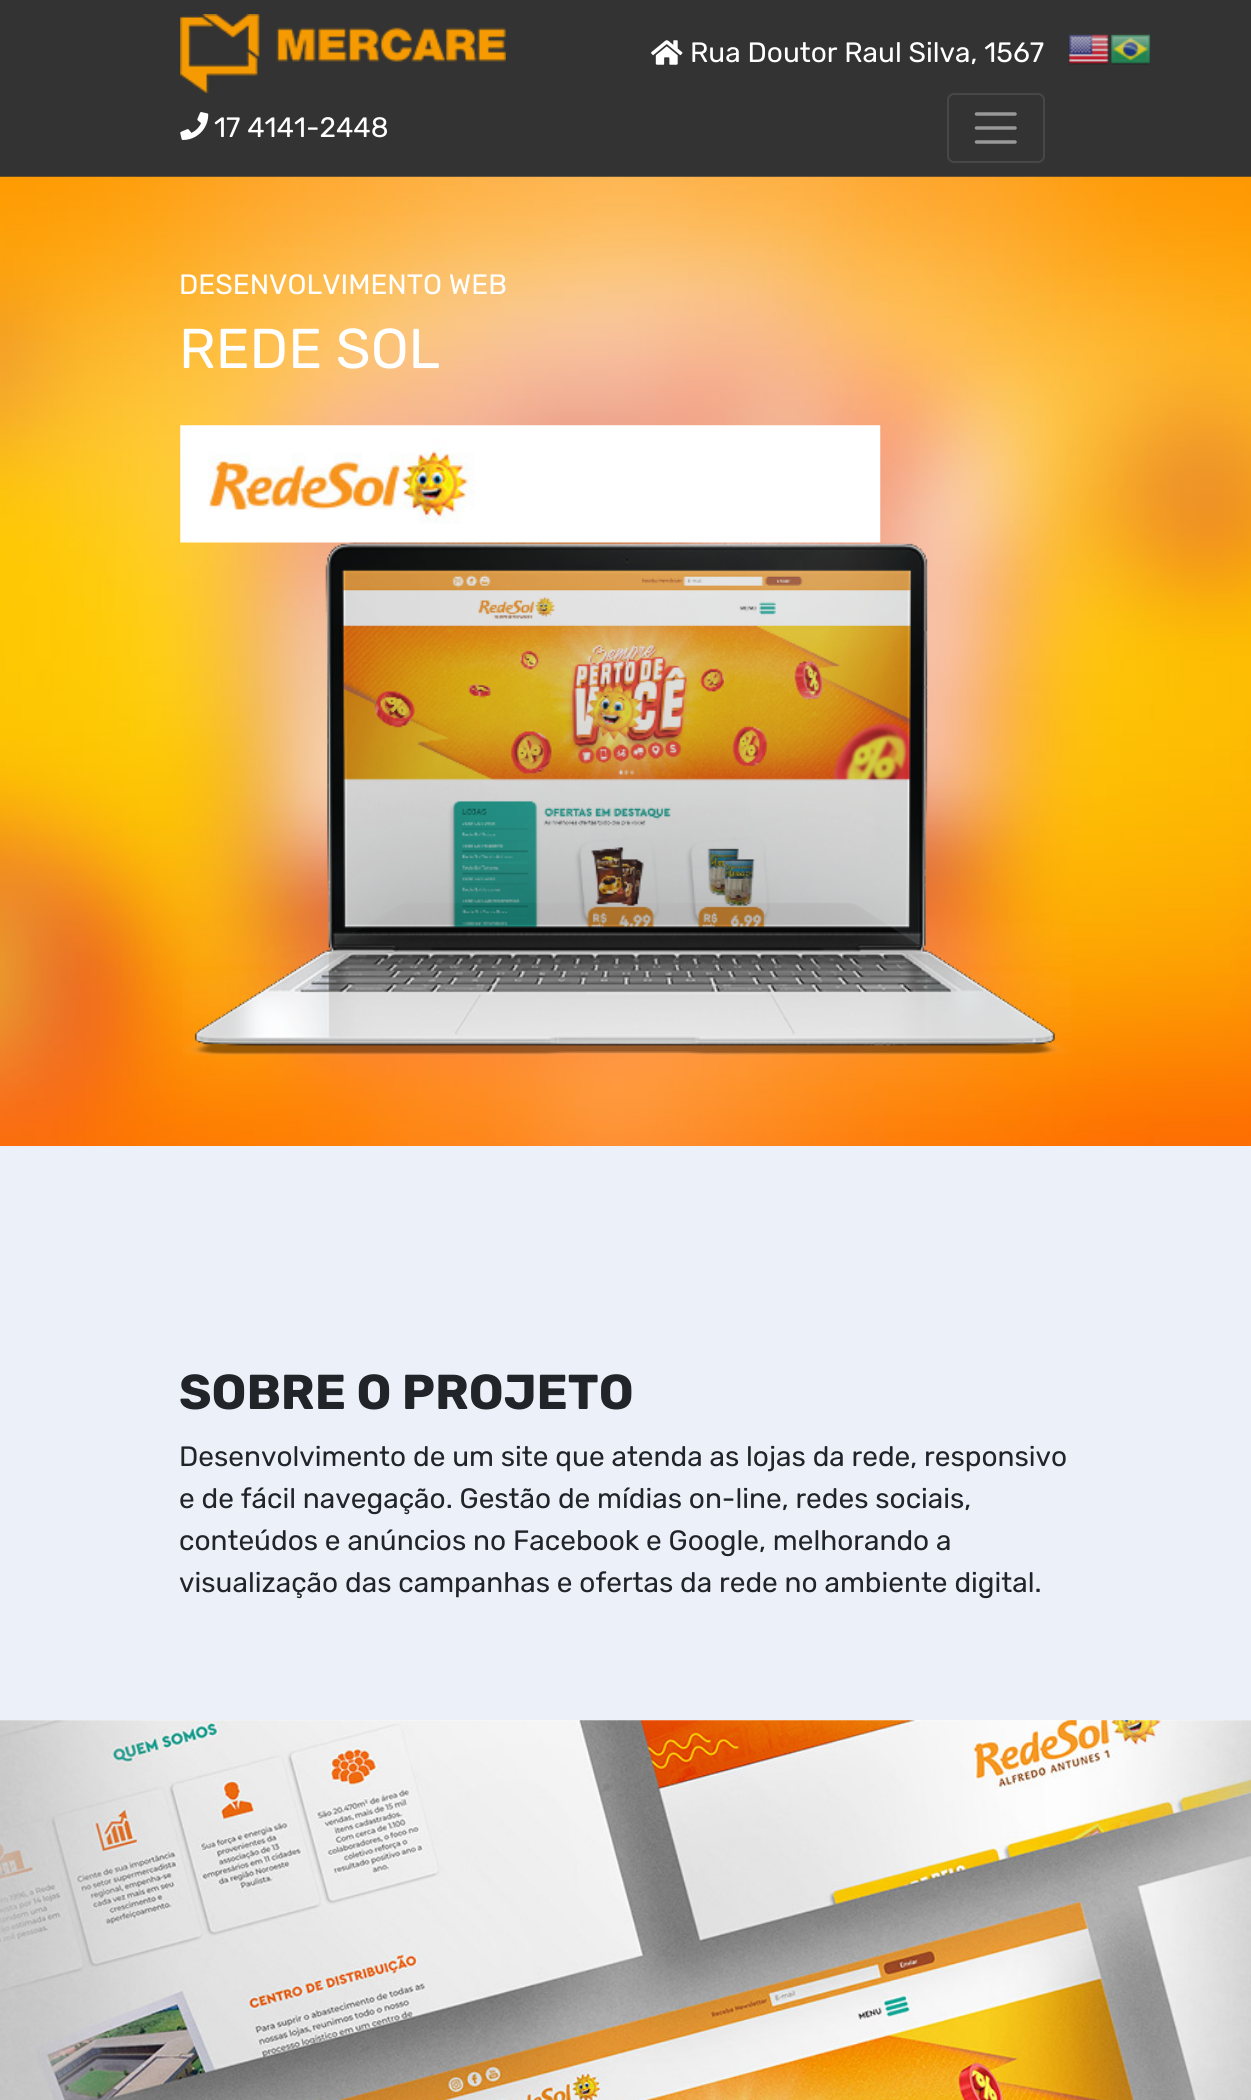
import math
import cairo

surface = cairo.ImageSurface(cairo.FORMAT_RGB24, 1251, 2100)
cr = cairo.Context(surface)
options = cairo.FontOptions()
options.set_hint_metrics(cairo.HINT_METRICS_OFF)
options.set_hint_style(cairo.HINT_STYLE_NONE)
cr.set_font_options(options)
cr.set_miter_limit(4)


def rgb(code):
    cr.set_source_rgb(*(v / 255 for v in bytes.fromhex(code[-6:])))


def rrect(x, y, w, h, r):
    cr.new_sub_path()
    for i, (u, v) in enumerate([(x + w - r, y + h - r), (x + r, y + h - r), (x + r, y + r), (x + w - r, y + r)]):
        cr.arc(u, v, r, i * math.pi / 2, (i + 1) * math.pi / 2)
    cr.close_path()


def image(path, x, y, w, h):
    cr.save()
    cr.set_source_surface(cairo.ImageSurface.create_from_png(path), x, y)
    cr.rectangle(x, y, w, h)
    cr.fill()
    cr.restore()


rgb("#ffffff")
cr.paint()
rgb("#333333")
cr.rectangle(0, 0, 1251, 177)
cr.fill()
image("img/1.png", 180, 14, 326, 79)
image("img/2.png", 651, 40, 32, 25)
image("img/3.png", 180, 112, 29, 28)
rrect(948, 94, 96, 68, 6)
rgb("#474747")
cr.stroke()
cr.new_path()
cr.move_to(976.5, 114)
cr.line_to(1015, 114)
cr.move_to(976.5, 128)
cr.line_to(1015, 128)
cr.move_to(976.5, 142)
cr.line_to(1015, 142)
rgb("#999999")
cr.set_line_width(3.5)
cr.set_line_cap(cairo.LINE_CAP_ROUND)
cr.stroke()
image("img/4.png", 1068, 34, 41, 31)
image("img/5.png", 1110, 34, 41, 31)
image("img/6.png", 0, 176, 1251, 970)
image("img/7.png", 180, 425, 701, 118)
image("img/8.png", 182, 542, 889, 514)
rgb("#ecf1f9")
cr.rectangle(0, 1146, 1251, 574)
cr.fill()
image("img/9.png", 0, 1720, 1251, 380)
cr.select_font_face("Rubik")
cr.set_font_size(28)
rgb("#ffffff")
for x, y, s in [
    (690, 62, "Rua Doutor Raul Silva, 1567"),
    (214, 137, "17 4141-2448"),
    (179, 294, "DESENVOLVIMENTO WEB"),
]:
    cr.move_to(x, y)
    cr.show_text(s)
cr.set_font_size(56)
cr.move_to(179, 368)
cr.show_text("REDE SOL")
cr.select_font_face("Rubik", cairo.FONT_SLANT_NORMAL, cairo.FONT_WEIGHT_BOLD)
cr.set_font_size(49)
rgb("#212529")
cr.move_to(179, 1409)
cr.show_text("SOBRE O PROJETO")
cr.select_font_face("Rubik")
cr.set_font_size(28)
for x, y, s in [
    (179, 1466, "Desenvolvimento de um site que atenda as lojas da rede, responsivo"),
    (179, 1508, "e de fácil navegação. Gestão de mídias on-line, redes sociais,"),
    (179, 1550, "conteúdos e anúncios no Facebook e Google, melhorando a"),
    (179, 1592, "visualização das campanhas e ofertas da rede no ambiente digital."),
]:
    cr.move_to(x, y)
    cr.show_text(s)
surface.write_to_png("page.png")
